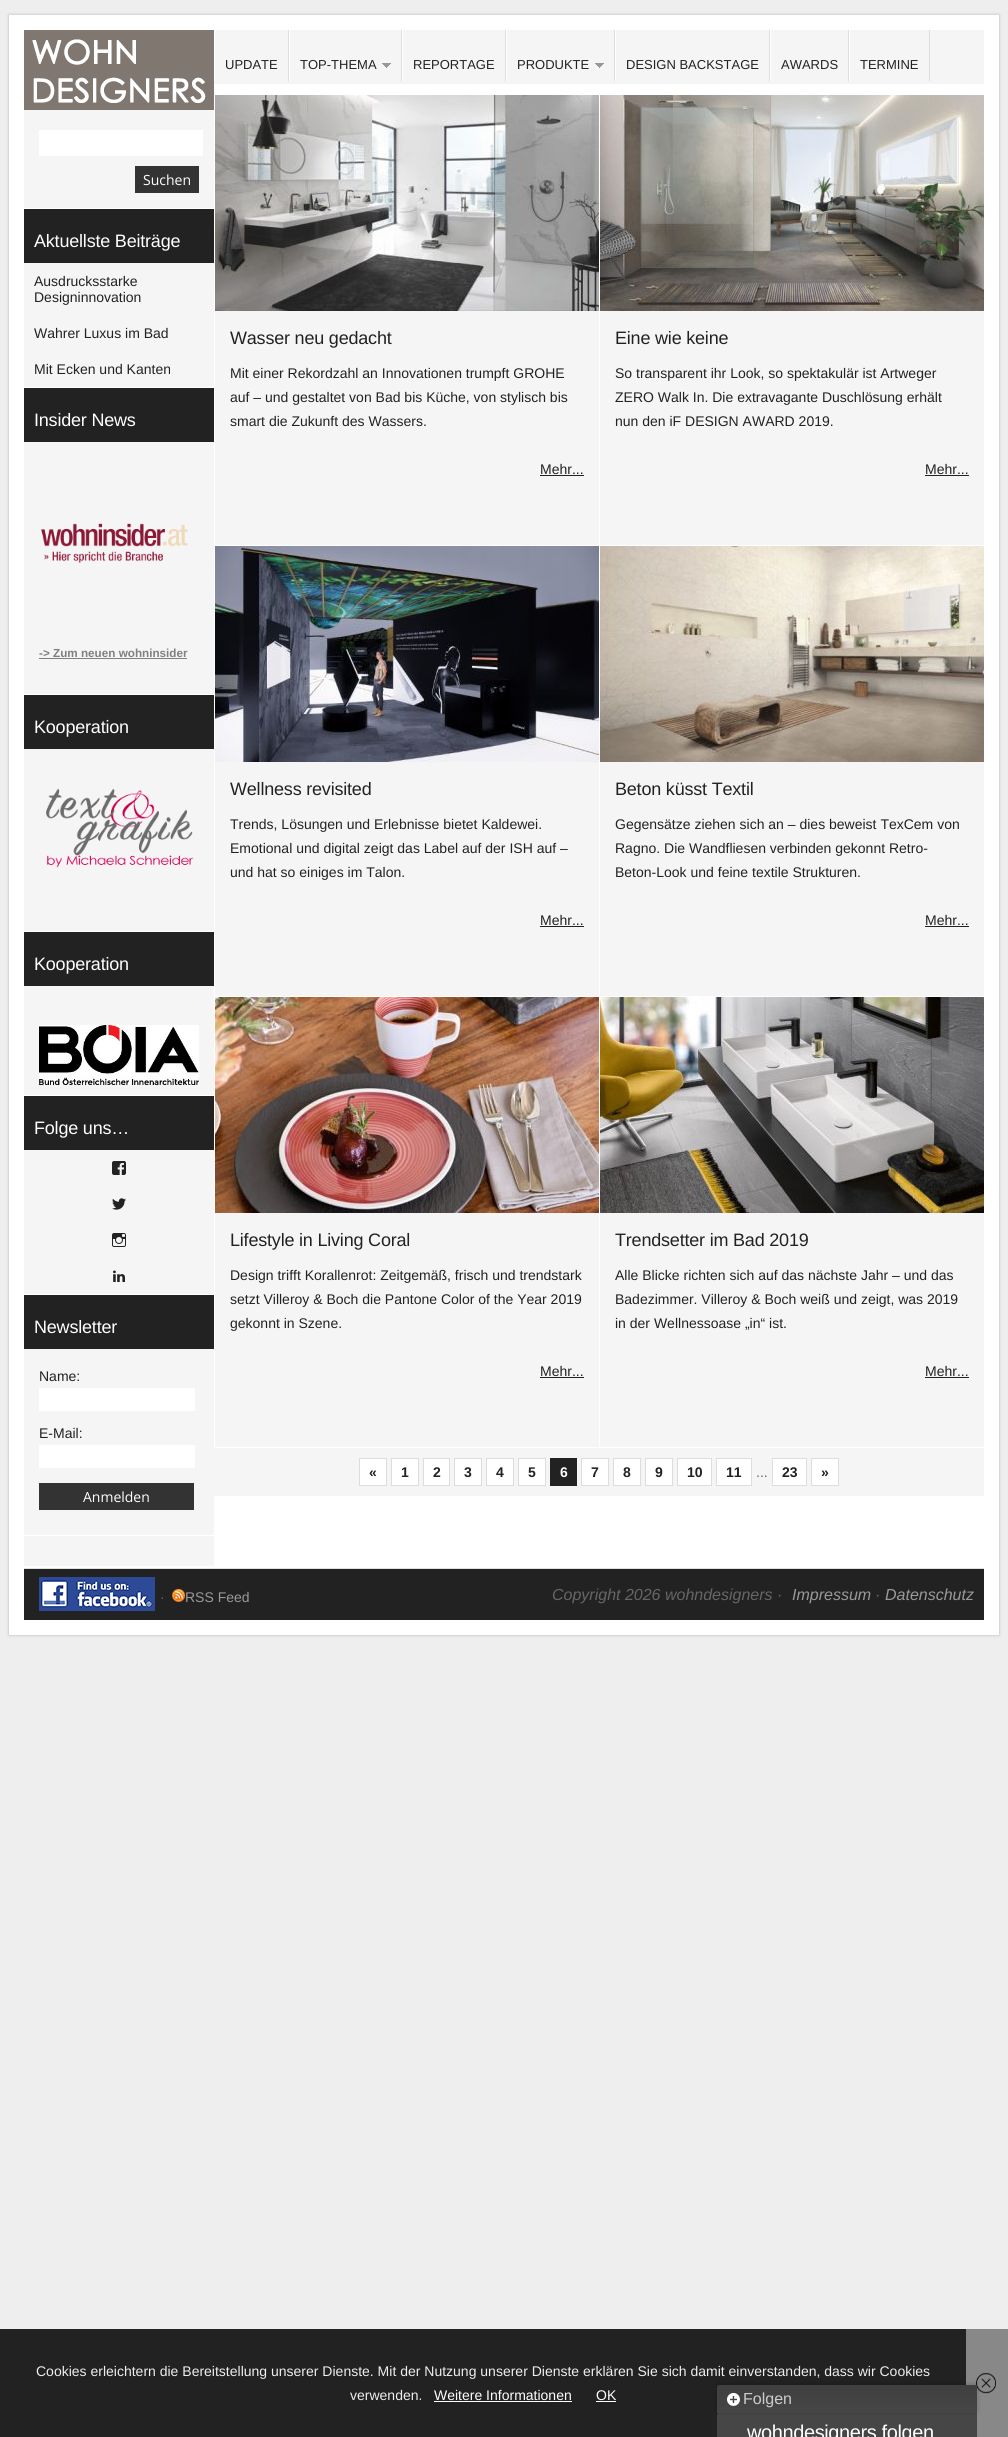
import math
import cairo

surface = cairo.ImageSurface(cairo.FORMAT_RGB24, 1008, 2437)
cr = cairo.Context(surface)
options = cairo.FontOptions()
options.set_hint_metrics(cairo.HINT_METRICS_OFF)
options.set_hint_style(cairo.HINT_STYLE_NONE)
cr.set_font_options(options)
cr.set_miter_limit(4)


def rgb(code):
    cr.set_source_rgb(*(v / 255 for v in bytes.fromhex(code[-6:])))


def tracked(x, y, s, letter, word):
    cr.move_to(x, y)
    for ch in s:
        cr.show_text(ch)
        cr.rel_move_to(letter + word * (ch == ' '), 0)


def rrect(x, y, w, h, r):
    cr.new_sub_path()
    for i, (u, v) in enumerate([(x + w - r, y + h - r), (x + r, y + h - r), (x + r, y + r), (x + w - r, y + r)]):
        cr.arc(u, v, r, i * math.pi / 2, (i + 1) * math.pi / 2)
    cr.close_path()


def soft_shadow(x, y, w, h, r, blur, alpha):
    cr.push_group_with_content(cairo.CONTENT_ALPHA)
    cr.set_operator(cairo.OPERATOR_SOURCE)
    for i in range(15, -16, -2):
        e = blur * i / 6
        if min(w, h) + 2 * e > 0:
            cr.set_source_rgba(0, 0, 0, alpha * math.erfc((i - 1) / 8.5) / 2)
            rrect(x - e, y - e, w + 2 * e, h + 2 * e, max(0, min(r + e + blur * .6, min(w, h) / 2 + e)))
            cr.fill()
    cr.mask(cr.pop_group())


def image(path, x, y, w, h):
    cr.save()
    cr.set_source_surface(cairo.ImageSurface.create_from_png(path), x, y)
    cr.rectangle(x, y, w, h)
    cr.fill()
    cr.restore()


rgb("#eeeeee")
cr.paint()
rgb("#b5b5b5")
soft_shadow(9, 15, 990, 1620, 0, 1.5, 1)
rgb("#ffffff")
cr.rectangle(9, 15, 990, 1620)
cr.fill()
image("img/1.png", 24, 30, 190, 80)
for x, y, w, h, color in [
    (214, 30, 770, 54, "#f5f5f5"),
    (288, 30, 1, 51, "#dddddd"),
    (214, 30, 1, 51, "#ffffff"),
    (401, 30, 1, 51, "#dddddd"),
    (289, 30, 1, 51, "#ffffff"),
]:
    rgb(color)
    cr.rectangle(x, y, w, h)
    cr.fill()
image("img/2.png", 382, 63, 9, 5)
for x, y, w, h, color in [
    (505, 30, 1, 51, "#dddddd"),
    (402, 30, 1, 51, "#ffffff"),
    (614, 30, 1, 51, "#dddddd"),
    (506, 30, 1, 51, "#ffffff"),
]:
    rgb(color)
    cr.rectangle(x, y, w, h)
    cr.fill()
image("img/2.png", 595, 63, 9, 5)
for x, y, w, h, color in [
    (769, 30, 1, 51, "#dddddd"),
    (615, 30, 1, 51, "#ffffff"),
    (848, 30, 1, 51, "#dddddd"),
    (770, 30, 1, 51, "#ffffff"),
    (929, 30, 1, 51, "#dddddd"),
    (849, 30, 1, 51, "#ffffff"),
    (24, 110, 190, 98, "#f5f5f5"),
    (39, 130, 164, 26, "#ffffff"),
    (135, 166, 64, 27, "#333333"),
    (24, 263, 190, 124, "#f5f5f5"),
    (24, 209, 190, 54, "#222222"),
    (24, 442, 190, 252, "#f5f5f5"),
    (24, 388, 190, 54, "#222222"),
]:
    rgb(color)
    cr.rectangle(x, y, w, h)
    cr.fill()
image("img/3.png", 41, 523, 147, 40)
for x, y, w, h, color in [
    (39, 658, 148, 1, "#808080"),
    (24, 749, 190, 182, "#f5f5f5"),
    (24, 695, 190, 54, "#222222"),
]:
    rgb(color)
    cr.rectangle(x, y, w, h)
    cr.fill()
image("img/4.png", 46, 788, 148, 80)
rgb("#f5f5f5")
cr.rectangle(24, 986, 190, 109)
cr.fill()
rgb("#222222")
cr.rectangle(24, 932, 190, 54)
cr.fill()
image("img/5.png", 39, 1025, 160, 60)
rgb("#f5f5f5")
cr.rectangle(24, 1150, 190, 144)
cr.fill()
rgb("#222222")
cr.rectangle(24, 1096, 190, 54)
cr.fill()
image("img/6.png", 112, 1161, 14, 14)
image("img/7.png", 112, 1198, 14, 12)
image("img/8.png", 112, 1233, 14, 14)
image("img/9.png", 113, 1270, 12, 12)
for x, y, w, h, color in [
    (24, 1349, 190, 186, "#f5f5f5"),
    (24, 1295, 190, 54, "#222222"),
    (39, 1388, 156, 23, "#ffffff"),
    (39, 1445, 156, 23, "#ffffff"),
    (39, 1483, 155, 27, "#333333"),
    (24, 1536, 190, 30, "#f5f5f5"),
    (215, 311, 384, 234, "#f5f5f5"),
]:
    rgb(color)
    cr.rectangle(x, y, w, h)
    cr.fill()
image("img/10.png", 215, 95, 384, 216)
rgb("#222222")
cr.rectangle(540, 475, 44, 1)
cr.fill()
rgb("#f5f5f5")
cr.rectangle(600, 311, 384, 234)
cr.fill()
image("img/11.png", 600, 95, 384, 216)
rgb("#222222")
cr.rectangle(925, 475, 44, 1)
cr.fill()
rgb("#f5f5f5")
cr.rectangle(215, 762, 384, 234)
cr.fill()
image("img/12.png", 215, 546, 384, 216)
rgb("#222222")
cr.rectangle(540, 926, 44, 1)
cr.fill()
rgb("#f5f5f5")
cr.rectangle(600, 762, 384, 234)
cr.fill()
image("img/13.png", 600, 546, 384, 216)
rgb("#222222")
cr.rectangle(925, 926, 44, 1)
cr.fill()
rgb("#f5f5f5")
cr.rectangle(215, 1213, 384, 234)
cr.fill()
image("img/14.png", 215, 997, 384, 216)
rgb("#222222")
cr.rectangle(540, 1377, 44, 1)
cr.fill()
rgb("#f5f5f5")
cr.rectangle(600, 1213, 384, 234)
cr.fill()
image("img/15.png", 600, 997, 384, 216)
rgb("#222222")
cr.rectangle(925, 1377, 44, 1)
cr.fill()
rgb("#f5f5f5")
cr.rectangle(214, 1448, 770, 48)
cr.fill()
rgb("#ffffff")
cr.rectangle(359.5, 1458.5, 27, 27)
cr.fill_preserve()
rgb("#dddddd")
cr.set_line_width(1)
cr.stroke()
rgb("#ffffff")
cr.rectangle(391.5, 1458.5, 27, 27)
cr.fill_preserve()
rgb("#dddddd")
cr.stroke()
rgb("#ffffff")
cr.rectangle(423.5, 1458.5, 26, 27)
cr.fill_preserve()
rgb("#dddddd")
cr.stroke()
rgb("#ffffff")
cr.rectangle(454.5, 1458.5, 27, 27)
cr.fill_preserve()
rgb("#dddddd")
cr.stroke()
rgb("#ffffff")
cr.rectangle(486.5, 1458.5, 27, 27)
cr.fill_preserve()
rgb("#dddddd")
cr.stroke()
rgb("#ffffff")
cr.rectangle(518.5, 1458.5, 27, 27)
cr.fill_preserve()
rgb("#dddddd")
cr.stroke()
rgb("#222222")
cr.rectangle(550, 1458, 27, 28)
cr.fill()
rgb("#ffffff")
cr.rectangle(581.5, 1458.5, 27, 27)
cr.fill_preserve()
rgb("#dddddd")
cr.stroke()
rgb("#ffffff")
cr.rectangle(613.5, 1458.5, 27, 27)
cr.fill_preserve()
rgb("#dddddd")
cr.stroke()
rgb("#ffffff")
cr.rectangle(645.5, 1458.5, 27, 27)
cr.fill_preserve()
rgb("#dddddd")
cr.stroke()
rgb("#ffffff")
cr.rectangle(677.5, 1458.5, 34, 27)
cr.fill_preserve()
rgb("#dddddd")
cr.stroke()
rgb("#ffffff")
cr.rectangle(716.5, 1458.5, 35, 27)
cr.fill_preserve()
rgb("#dddddd")
cr.stroke()
rgb("#ffffff")
cr.rectangle(772.5, 1458.5, 34, 27)
cr.fill_preserve()
rgb("#dddddd")
cr.stroke()
rgb("#ffffff")
cr.rectangle(811.5, 1458.5, 27, 27)
cr.fill_preserve()
rgb("#dddddd")
cr.stroke()
cr.rectangle(24, 1568, 960, 1)
cr.fill()
rgb("#222222")
cr.rectangle(24, 1569, 960, 51)
cr.fill()
image("img/16.png", 39, 1577, 116, 34)
image("img/17.png", 172, 1589, 13, 13)
for x, y, w, h, color in [
    (0, 2329, 966, 108, "#222222"),
    (434, 2401, 138, 1, "#ffffff"),
    (596, 2401, 20, 1, "#ffffff"),
    (966, 2329, 42, 108, "#888888"),
]:
    rgb(color)
    cr.rectangle(x, y, w, h)
    cr.fill()
image("img/18.png", 976, 2372, 20, 22)
rgb("#464646")
cr.new_path()
cr.move_to(719, 2413)
cr.line_to(977, 2413)
cr.line_to(977, 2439)
cr.line_to(717, 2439)
cr.line_to(717, 2415)
cr.curve_to(717, 2414, 718, 2413, 719, 2413)
cr.close_path()
cr.fill()
rgb("#000000")
soft_shadow(717, 2384, 260, 28, 2, 2.5, 0.2)
gradient = cairo.LinearGradient(717, 2385, 717, 2413)
gradient.add_color_stop_rgba(0, 0.247, 0.247, 0.247, 1)
gradient.add_color_stop_rgba(1, 0.275, 0.275, 0.275, 1)
cr.set_source(gradient)
cr.new_path()
cr.move_to(719, 2385)
cr.line_to(975, 2385)
cr.curve_to(976, 2385, 977, 2386, 977, 2387)
cr.line_to(977, 2413)
cr.line_to(717, 2413)
cr.line_to(717, 2387)
cr.curve_to(717, 2386, 718, 2385, 719, 2385)
cr.close_path()
cr.fill()
image("img/19.png", 727, 2393, 13, 13)
cr.select_font_face("Liberation Sans")
cr.set_font_size(13)
rgb("#222222")
for x, y, s in [
    (225, 69, "UPDATE"),
    (300, 69, "TOP-THEMA"),
    (413, 69, "REPORTAGE"),
    (517, 69, "PRODUKTE"),
    (626, 69, "DESIGN BACKSTAGE"),
    (781, 69, "AWARDS"),
    (860, 69, "TERMINE"),
]:
    cr.move_to(x, y)
    cr.show_text(s)
cr.select_font_face("Open Sans")
cr.set_font_size(14)
rgb("#ffffff")
cr.move_to(143, 185)
cr.show_text("Suchen")
cr.select_font_face("Liberation Sans")
cr.set_font_size(18)
tracked(34, 247, "Aktuellste Beiträge", -0.2, 0)
cr.set_font_size(14)
rgb("#222222")
for x, y, s in [
    (34, 286, "Ausdrucksstarke"),
    (34, 302, "Designinnovation"),
    (34, 338, "Wahrer Luxus im Bad"),
    (34, 374, "Mit Ecken und Kanten"),
]:
    cr.move_to(x, y)
    cr.show_text(s)
cr.set_font_size(18)
rgb("#ffffff")
tracked(34, 426, "Insider News", -0.2, 0)
cr.select_font_face("Liberation Sans", cairo.FONT_SLANT_NORMAL, cairo.FONT_WEIGHT_BOLD)
cr.set_font_size(11.7)
rgb("#808080")
cr.move_to(39, 657)
cr.show_text("-> Zum neuen wohninsider")
cr.select_font_face("Liberation Sans")
cr.set_font_size(18)
rgb("#ffffff")
for x, y, s in [
    (34, 733, "Kooperation"),
    (34, 970, "Kooperation"),
    (34, 1134, "Folge uns…"),
    (34, 1333, "Newsletter"),
]:
    tracked(x, y, s, -0.2, 0)
cr.set_font_size(14)
rgb("#222222")
cr.move_to(39, 1381)
cr.show_text("Name:")
cr.move_to(39, 1438)
cr.show_text("E-Mail:")
cr.select_font_face("Open Sans")
rgb("#ffffff")
cr.move_to(83, 1502)
cr.show_text("Anmelden")
cr.select_font_face("Liberation Sans")
cr.set_font_size(18)
rgb("#222222")
tracked(230, 344, "Wasser neu gedacht", -0.2, 0)
cr.set_font_size(14)
for x, y, s in [
    (230, 378, "Mit einer Rekordzahl an Innovationen trumpft GROHE"),
    (230, 402, "auf – und gestaltet von Bad bis Küche, von stylisch bis"),
    (230, 426, "smart die Zukunft des Wassers."),
    (540, 474, "Mehr..."),
]:
    cr.move_to(x, y)
    cr.show_text(s)
cr.set_font_size(18)
tracked(615, 344, "Eine wie keine", -0.2, 0)
cr.set_font_size(14)
for x, y, s in [
    (615, 378, "So transparent ihr Look, so spektakulär ist Artweger"),
    (615, 402, "ZERO Walk In. Die extravagante Duschlösung erhält"),
    (615, 426, "nun den iF DESIGN AWARD 2019."),
    (925, 474, "Mehr..."),
]:
    cr.move_to(x, y)
    cr.show_text(s)
cr.set_font_size(18)
tracked(230, 795, "Wellness revisited", -0.2, 0)
cr.set_font_size(14)
for x, y, s in [
    (230, 829, "Trends, Lösungen und Erlebnisse bietet Kaldewei."),
    (230, 853, "Emotional und digital zeigt das Label auf der ISH auf –"),
    (230, 877, "und hat so einiges im Talon."),
    (540, 925, "Mehr..."),
]:
    cr.move_to(x, y)
    cr.show_text(s)
cr.set_font_size(18)
tracked(615, 795, "Beton küsst Textil", -0.2, 0)
cr.set_font_size(14)
for x, y, s in [
    (615, 829, "Gegensätze ziehen sich an – dies beweist TexCem von"),
    (615, 853, "Ragno. Die Wandfliesen verbinden gekonnt Retro-"),
    (615, 877, "Beton-Look und feine textile Strukturen."),
    (925, 925, "Mehr..."),
]:
    cr.move_to(x, y)
    cr.show_text(s)
cr.set_font_size(18)
tracked(230, 1246, "Lifestyle in Living Coral", -0.2, 0)
cr.set_font_size(14)
for x, y, s in [
    (230, 1280, "Design trifft Korallenrot: Zeitgemäß, frisch und trendstark"),
    (230, 1304, "setzt Villeroy & Boch die Pantone Color of the Year 2019"),
    (230, 1328, "gekonnt in Szene."),
    (540, 1376, "Mehr..."),
]:
    cr.move_to(x, y)
    cr.show_text(s)
cr.set_font_size(18)
tracked(615, 1246, "Trendsetter im Bad 2019", -0.2, 0)
cr.set_font_size(14)
for x, y, s in [
    (615, 1280, "Alle Blicke richten sich auf das nächste Jahr – und das"),
    (615, 1304, "Badezimmer. Villeroy & Boch weiß und zeigt, was 2019"),
    (615, 1328, "in der Wellnessoase „in“ ist."),
    (925, 1376, "Mehr..."),
]:
    cr.move_to(x, y)
    cr.show_text(s)
cr.select_font_face("Liberation Sans", cairo.FONT_SLANT_NORMAL, cairo.FONT_WEIGHT_BOLD)
for x, y, s in [
    (369, 1477, "«"),
    (401, 1477, "1"),
    (433, 1477, "2"),
    (464, 1477, "3"),
    (496, 1477, "4"),
    (528, 1477, "5"),
]:
    cr.move_to(x, y)
    cr.show_text(s)
rgb("#ffffff")
cr.move_to(560, 1477)
cr.show_text("6")
rgb("#222222")
for x, y, s in [
    (591, 1477, "7"),
    (623, 1477, "8"),
    (655, 1477, "9"),
    (687, 1477, "10"),
    (726, 1477, "11"),
]:
    cr.move_to(x, y)
    cr.show_text(s)
cr.select_font_face("Liberation Sans")
rgb("#666666")
cr.move_to(756, 1477)
cr.show_text("...")
cr.select_font_face("Liberation Sans", cairo.FONT_SLANT_NORMAL, cairo.FONT_WEIGHT_BOLD)
rgb("#222222")
cr.move_to(782, 1477)
cr.show_text("23")
cr.move_to(821, 1477)
cr.show_text("»")
cr.select_font_face("Liberation Sans")
rgb("#666666")
cr.move_to(160, 1602)
cr.show_text("·")
rgb("#999999")
cr.move_to(185, 1602)
cr.show_text("RSS Feed")
cr.select_font_face("Liberation Sans", cairo.FONT_SLANT_ITALIC)
cr.set_font_size(16)
rgb("#666666")
cr.move_to(552, 1600)
cr.show_text("Copyright 2026 wohndesigners ·")
rgb("#999999")
cr.move_to(792, 1600)
cr.show_text("Impressum")
rgb("#666666")
cr.move_to(875, 1600)
cr.show_text("·")
rgb("#999999")
cr.move_to(885, 1600)
cr.show_text("Datenschutz")
cr.select_font_face("Liberation Sans")
cr.set_font_size(14)
rgb("#eeeeee")
cr.move_to(36, 2376)
cr.show_text("Cookies erleichtern die Bereitstellung unserer Dienste. Mit der Nutzung unserer Dienste erklären Sie sich damit einverstanden, dass wir Cookies")
cr.move_to(350, 2400)
cr.show_text("verwenden.")
rgb("#ffffff")
cr.move_to(434, 2400)
cr.show_text("Weitere Informationen")
cr.move_to(596, 2400)
cr.show_text("OK")
cr.set_font_size(16)
rgb("#cccccc")
cr.move_to(743, 2404)
cr.show_text("Folgen")
cr.set_font_size(20)
rgb("#ffffff")
tracked(747, 2439, "wohndesigners folgen", -0.4, 0)
surface.write_to_png("page.png")
